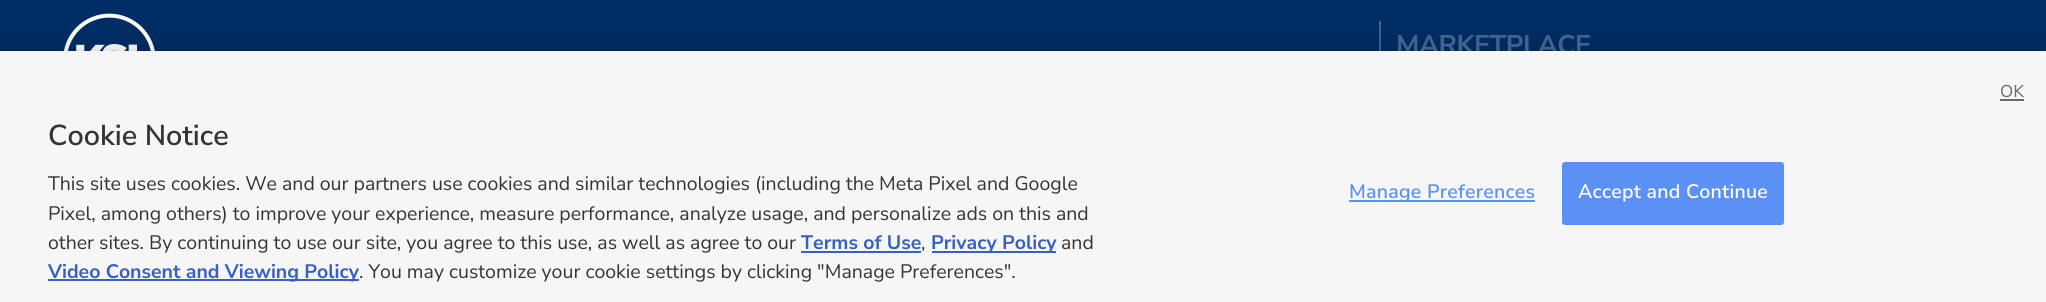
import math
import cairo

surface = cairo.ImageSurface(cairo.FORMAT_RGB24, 2046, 302)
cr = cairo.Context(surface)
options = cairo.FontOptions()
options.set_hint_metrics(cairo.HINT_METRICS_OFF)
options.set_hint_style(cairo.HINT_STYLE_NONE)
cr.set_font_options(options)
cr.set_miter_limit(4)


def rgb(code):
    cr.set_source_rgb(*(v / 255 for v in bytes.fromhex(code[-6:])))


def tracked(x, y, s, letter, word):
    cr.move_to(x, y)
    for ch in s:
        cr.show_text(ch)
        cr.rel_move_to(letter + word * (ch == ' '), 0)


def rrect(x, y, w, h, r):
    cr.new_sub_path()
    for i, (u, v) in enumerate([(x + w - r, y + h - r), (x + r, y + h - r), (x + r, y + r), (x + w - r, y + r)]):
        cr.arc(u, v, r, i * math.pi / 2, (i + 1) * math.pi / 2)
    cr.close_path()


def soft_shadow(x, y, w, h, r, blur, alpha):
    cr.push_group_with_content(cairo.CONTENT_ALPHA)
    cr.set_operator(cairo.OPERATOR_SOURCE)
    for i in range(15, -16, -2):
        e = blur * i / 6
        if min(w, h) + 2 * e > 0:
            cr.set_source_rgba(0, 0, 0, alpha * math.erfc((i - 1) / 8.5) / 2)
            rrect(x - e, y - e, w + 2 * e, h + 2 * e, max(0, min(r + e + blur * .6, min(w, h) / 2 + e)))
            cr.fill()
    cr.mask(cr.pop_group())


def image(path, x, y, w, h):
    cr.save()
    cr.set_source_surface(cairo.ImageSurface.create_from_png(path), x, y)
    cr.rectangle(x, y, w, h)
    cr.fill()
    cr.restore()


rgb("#002d65")
cr.paint()
image("img/1.png", 63, 13, 92, 38)
rgb("#40628c")
cr.rectangle(1379, 21, 2, 30)
cr.fill()
rgb("#000000")
soft_shadow(0, 51, 2046, 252, 0, 13.5, 0.2)
cr.select_font_face("Nunito Sans", cairo.FONT_SLANT_NORMAL, cairo.FONT_WEIGHT_BOLD)
cr.set_font_size(27)
rgb("#40628c")
tracked(1396, 54, "MARKETPLACE", -0.5, 0)
rgb("#f6f6f6")
cr.rectangle(0, 51, 2046, 251)
cr.fill()
cr.select_font_face("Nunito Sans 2")
cr.set_font_size(17)
rgb("#696969")
cr.move_to(2000, 97)
cr.show_text("OK")
cr.rectangle(2000, 99, 24, 2)
cr.fill()
cr.select_font_face("Nunito Sans SemiBold")
cr.set_font_size(28.75)
rgb("#343434")
cr.move_to(48, 145)
cr.show_text("Cookie Notice")
cr.select_font_face("Nunito Sans")
cr.set_font_size(19.5)
for x, y, s in [
    (48, 190, "This site uses cookies. We and our partners use cookies and similar technologies (including the Meta Pixel and Google"),
    (48, 220, "Pixel, among others) to improve your experience, measure performance, analyze usage, and personalize ads on this and"),
    (48, 249, "other sites. By continuing to use our site, you agree to this use, as well as agree to our"),
]:
    cr.move_to(x, y)
    cr.show_text(s)
cr.select_font_face("Nunito Sans", cairo.FONT_SLANT_NORMAL, cairo.FONT_WEIGHT_BOLD)
rgb("#3860be")
cr.move_to(801, 249)
cr.show_text("Terms of Use")
cr.rectangle(801, 251, 120, 2)
cr.fill()
cr.select_font_face("Nunito Sans")
rgb("#343434")
cr.move_to(921, 249)
cr.show_text(",")
rgb("#3860be")
cr.rectangle(932, 251, 124, 2)
cr.fill()
cr.select_font_face("Nunito Sans", cairo.FONT_SLANT_NORMAL, cairo.FONT_WEIGHT_BOLD)
cr.move_to(931, 249)
cr.show_text("Privacy Policy")
cr.select_font_face("Nunito Sans")
rgb("#343434")
cr.move_to(1061, 249)
cr.show_text("and")
rgb("#3860be")
cr.rectangle(48, 279, 311, 2)
cr.fill()
cr.select_font_face("Nunito Sans", cairo.FONT_SLANT_NORMAL, cairo.FONT_WEIGHT_BOLD)
cr.move_to(48, 278)
cr.show_text("Video Consent and Viewing Policy")
cr.select_font_face("Nunito Sans")
rgb("#343434")
cr.move_to(359, 278)
cr.show_text(". You may customize your cookie settings by clicking \"Manage Preferences\".")
rgb("#5b91f4")
cr.rectangle(1349, 200, 186, 2)
cr.fill()
cr.select_font_face("Nunito Sans SemiBold")
tracked(1349, 198, "Manage Preferences", 0.25, 0)
rrect(1563, 163, 220, 61, 2)
cr.fill_preserve()
cr.stroke()
rgb("#ffffff")
tracked(1578, 198, "Accept and Continue", 0.25, 0)
surface.write_to_png("page.png")
